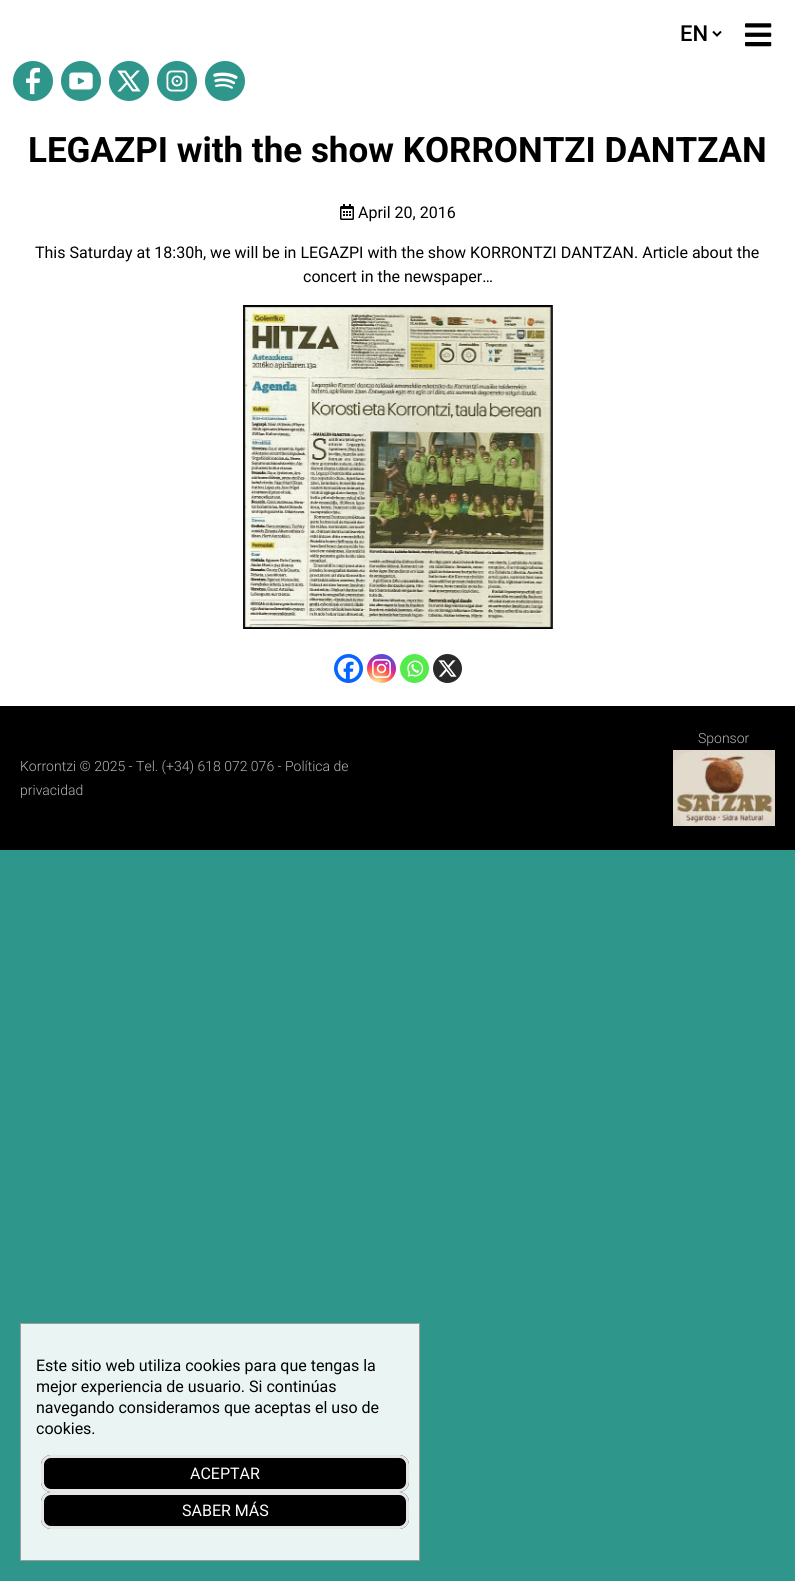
import math
import cairo

surface = cairo.ImageSurface(cairo.FORMAT_RGB24, 795, 1581)
cr = cairo.Context(surface)
options = cairo.FontOptions()
options.set_hint_metrics(cairo.HINT_METRICS_OFF)
options.set_hint_style(cairo.HINT_STYLE_NONE)
cr.set_font_options(options)
cr.set_miter_limit(4)


def rgb(code):
    cr.set_source_rgb(*(v / 255 for v in bytes.fromhex(code[-6:])))


def rrect(x, y, w, h, r):
    cr.new_sub_path()
    for i, (u, v) in enumerate([(x + w - r, y + h - r), (x + r, y + h - r), (x + r, y + r), (x + w - r, y + r)]):
        cr.arc(u, v, r, i * math.pi / 2, (i + 1) * math.pi / 2)
    cr.close_path()


def image(path, x, y, w, h):
    cr.save()
    cr.set_source_surface(cairo.ImageSurface.create_from_png(path), x, y)
    cr.rectangle(x, y, w, h)
    cr.fill()
    cr.restore()


rgb("#2f968b")
cr.paint()
rgb("#ffffff")
cr.rectangle(0, 0, 795, 706)
cr.fill()
cr.new_path()
cr.move_to(713, 31.5)
cr.line_to(717, 35.5)
cr.line_to(721, 31.5)
rgb("#000000")
cr.stroke()
image("img/1.png", 745, 23, 27, 24)
image("img/2.png", 13, 61, 40, 40)
image("img/3.png", 61, 61, 40, 40)
image("img/4.png", 109, 61, 40, 40)
image("img/5.png", 157, 61, 40, 40)
image("img/6.png", 205, 61, 40, 40)
image("img/7.png", 340, 204, 14, 16)
image("img/8.png", 243, 305, 310, 324)
rgb("#0765fe")
cr.arc(348.5, 668.5, 14.5, 0, 2 * math.pi)
cr.fill()
image("img/9.png", 337, 657, 23, 23)
gradient = cairo.RadialGradient(376, 685, 0, 376, 685, 37)
gradient.add_color_stop_rgba(0, 0.992, 0.957, 0.592, 1)
gradient.add_color_stop_rgba(0.05, 0.992, 0.957, 0.592, 1)
gradient.add_color_stop_rgba(0.45, 0.992, 0.349, 0.286, 1)
gradient.add_color_stop_rgba(0.6, 0.839, 0.141, 0.624, 1)
gradient.add_color_stop_rgba(0.9, 0.157, 0.353, 0.922, 1)
cr.set_source(gradient)
cr.arc(381.5, 668.5, 14.5, 0, 2 * math.pi)
cr.fill()
image("img/10.png", 372, 659, 19, 19)
rgb("#55eb4c")
cr.arc(414.5, 668.5, 14.5, 0, 2 * math.pi)
cr.fill()
image("img/11.png", 407, 660, 17, 17)
rgb("#2a2a2a")
cr.arc(447.5, 668.5, 14.5, 0, 2 * math.pi)
cr.fill()
image("img/12.png", 438, 660, 19, 17)
rgb("#000000")
cr.rectangle(0, 706, 795, 144)
cr.fill()
image("img/13.png", 673, 750, 102, 76)
rgb("#eaf5f3")
cr.rectangle(20.5, 1323.5, 399, 237)
cr.fill_preserve()
rgb("#9c9c9c")
cr.set_line_width(1)
cr.stroke()
rgb("#000000")
rrect(41, 1455, 368, 37, 10)
cr.fill()
rrect(42.5, 1456.5, 365, 34, 8.5)
cr.set_source_rgba(1, 1, 1, 0.9)
cr.set_line_width(3)
cr.stroke()
rgb("#000000")
rrect(41, 1492, 368, 37, 10)
cr.fill()
rrect(42.5, 1493.5, 365, 34, 8.5)
cr.set_source_rgba(1, 1, 1, 0.9)
cr.stroke()
cr.select_font_face("Roboto Medium")
cr.set_font_size(22)
rgb("#000000")
cr.move_to(680, 41)
cr.show_text("EN")
cr.select_font_face("Roboto", cairo.FONT_SLANT_NORMAL, cairo.FONT_WEIGHT_BOLD)
cr.set_font_size(35)
cr.move_to(28, 162)
cr.show_text("LEGAZPI with the show KORRONTZI DANTZAN")
cr.select_font_face("Roboto")
cr.set_font_size(16)
for x, y, s in [
    (358, 218, "April 20, 2016"),
    (35, 258, "This Saturday at 18:30h, we will be in LEGAZPI with the show KORRONTZI DANTZAN. Article about the"),
    (303, 282, "concert in the newspaper…"),
]:
    cr.move_to(x, y)
    cr.show_text(s)
cr.select_font_face("Roboto Light")
cr.set_font_size(14)
rgb("#b5b5b5")
for x, y, s in [
    (698, 743, "Sponsor"),
    (20, 771, "Korrontzi © 2025 - Tel. (+34) 618 072 076 - Política de"),
    (20, 795, "privacidad"),
]:
    cr.move_to(x, y)
    cr.show_text(s)
cr.select_font_face("Roboto")
cr.set_font_size(16)
rgb("#000000")
for x, y, s in [
    (36, 1371, "Este sitio web utiliza cookies para que tengas la"),
    (36, 1392, "mejor experiencia de usuario. Si continúas"),
    (36, 1413, "navegando consideramos que aceptas el uso de"),
    (36, 1434, "cookies."),
]:
    cr.move_to(x, y)
    cr.show_text(s)
rgb("#ffffff")
cr.move_to(190, 1479)
cr.show_text("ACEPTAR")
cr.move_to(182, 1516)
cr.show_text("SABER MÁS")
surface.write_to_png("page.png")
